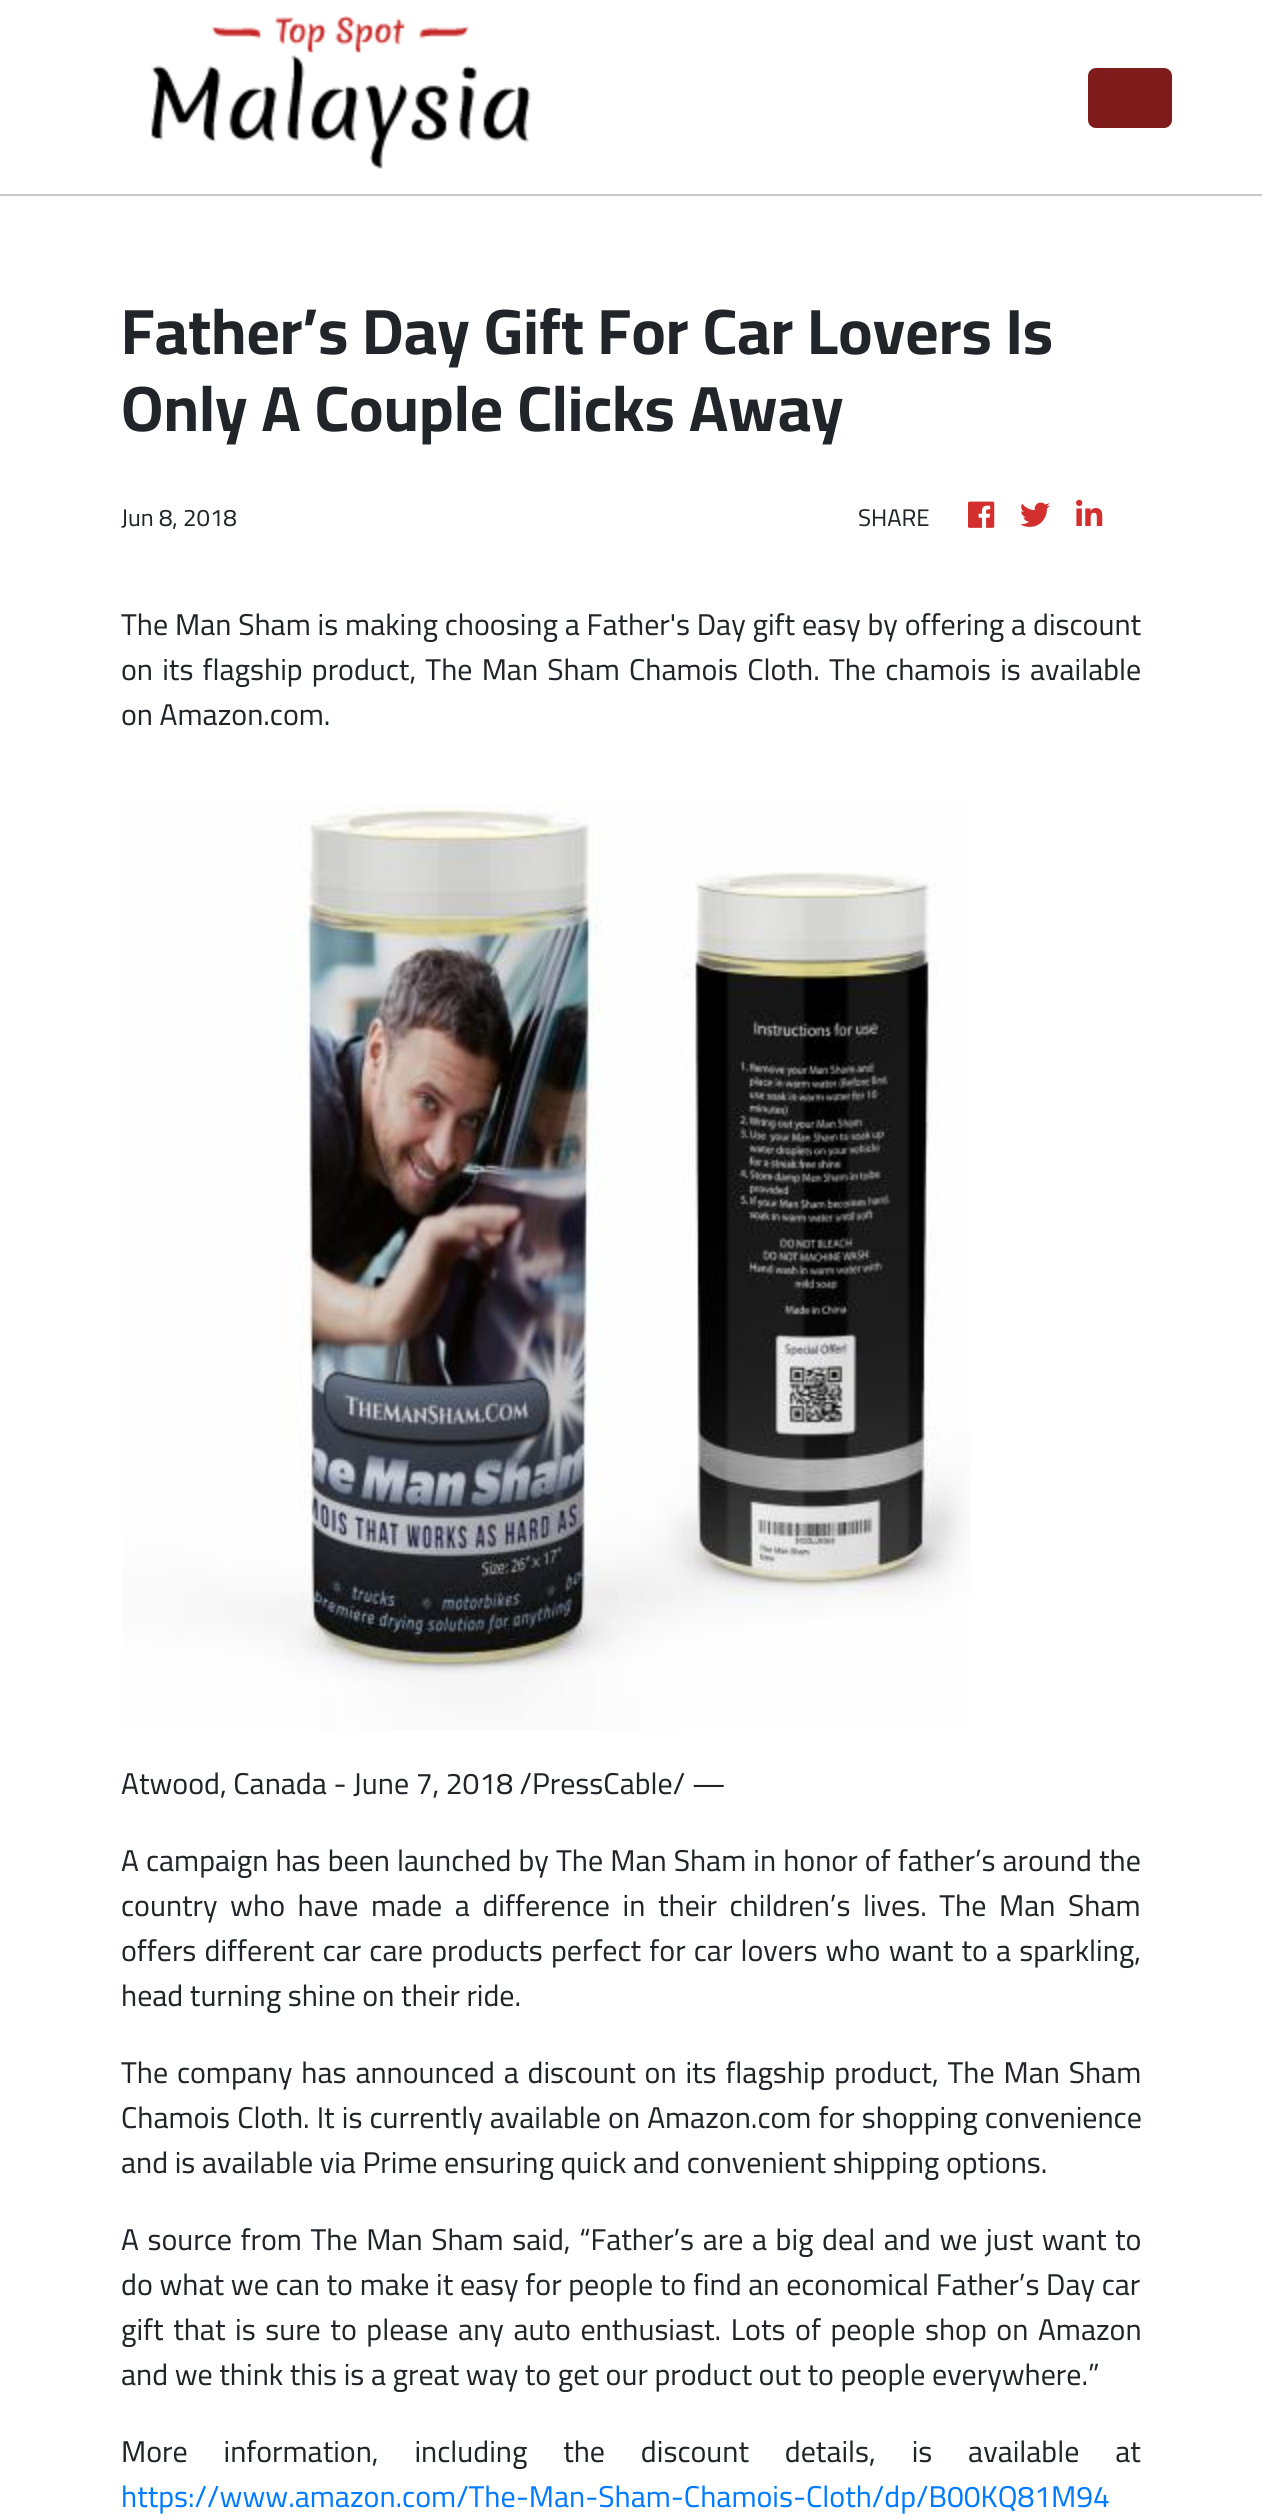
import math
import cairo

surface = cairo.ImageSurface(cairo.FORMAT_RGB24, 1262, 2519)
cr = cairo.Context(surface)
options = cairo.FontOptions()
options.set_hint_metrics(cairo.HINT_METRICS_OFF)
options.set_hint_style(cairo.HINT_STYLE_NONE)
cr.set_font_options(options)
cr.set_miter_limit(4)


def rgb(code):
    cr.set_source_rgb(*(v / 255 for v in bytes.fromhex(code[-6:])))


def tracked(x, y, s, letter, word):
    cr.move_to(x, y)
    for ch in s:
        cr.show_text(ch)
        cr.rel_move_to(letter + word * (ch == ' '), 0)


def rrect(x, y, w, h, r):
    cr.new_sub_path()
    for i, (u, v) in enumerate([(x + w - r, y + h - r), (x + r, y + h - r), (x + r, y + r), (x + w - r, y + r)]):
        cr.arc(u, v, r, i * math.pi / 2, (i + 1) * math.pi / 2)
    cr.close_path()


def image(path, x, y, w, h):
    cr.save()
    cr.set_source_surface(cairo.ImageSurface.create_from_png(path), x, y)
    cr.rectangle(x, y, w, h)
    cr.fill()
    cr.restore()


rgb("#ffffff")
cr.paint()
rgb("#cacaca")
cr.rectangle(0, 194, 1262, 2)
cr.fill()
image("img/1.png", 151, 16, 380, 153)
rgb("#7e1c1c")
rrect(1088, 68, 84, 60, 8)
cr.fill()
image("img/2.png", 968, 501, 27, 27)
image("img/3.png", 1020, 502, 30, 25)
image("img/4.png", 1076, 499, 27, 27)
image("img/5.png", 122, 803, 849, 927)
cr.select_font_face("Cairo", cairo.FONT_SLANT_NORMAL, cairo.FONT_WEIGHT_BOLD)
cr.set_font_size(64)
rgb("#212529")
cr.move_to(121, 354)
cr.show_text("Father’s Day Gift For Car Lovers Is")
cr.move_to(121, 431)
cr.show_text("Only A Couple Clicks Away")
cr.select_font_face("Cairo")
cr.set_font_size(24)
cr.move_to(121, 526)
cr.show_text("Jun 8, 2018")
cr.move_to(858, 526)
cr.show_text("SHARE")
cr.set_font_size(30)
tracked(121, 635, "The Man Sham is making choosing a Father's Day gift easy by offering a discount", 0, 0.25)
tracked(121, 680, "on its flagship product, The Man Sham Chamois Cloth. The chamois is available", 0, 2.6)
cr.move_to(121, 725)
cr.show_text("on Amazon.com.")
cr.move_to(121, 1794)
cr.show_text("Atwood, Canada - June 7, 2018 /PressCable/ —")
tracked(121, 1871, "A campaign has been launched by The Man Sham in honor of father’s around the", 0, 0.5)
tracked(121, 1916, "country who have made a difference in their children’s lives. The Man Sham", 0, 6)
tracked(121, 1961, "offers different car care products perfect for car lovers who want to a sparkling,", 0, 1.6)
cr.move_to(121, 2006)
cr.show_text("head turning shine on their ride.")
tracked(121, 2083, "The company has announced a discount on its flagship product, The Man Sham", 0, 2.25)
tracked(121, 2128, "Chamois Cloth. It is currently available on Amazon.com for shopping convenience", 0, 0.5)
cr.move_to(121, 2173)
cr.show_text("and is available via Prime ensuring quick and convenient shipping options.")
tracked(121, 2250, "A source from The Man Sham said, “Father’s are a big deal and we just want to", 0, 2)
tracked(121, 2295, "do what we can to make it easy for people to find an economical Father’s Day car", 0, 0.1)
tracked(121, 2340, "gift that is sure to please any auto enthusiast. Lots of people shop on Amazon", 0, 3)
cr.move_to(121, 2385)
cr.show_text("and we think this is a great way to get our product out to people everywhere.”")
tracked(121, 2462, "More information, including the discount details, is available at", 0, 29.25)
rgb("#007bff")
cr.move_to(121, 2507)
cr.show_text("https://www.amazon.com/The-Man-Sham-Chamois-Cloth/dp/B00KQ81M94")
surface.write_to_png("page.png")
